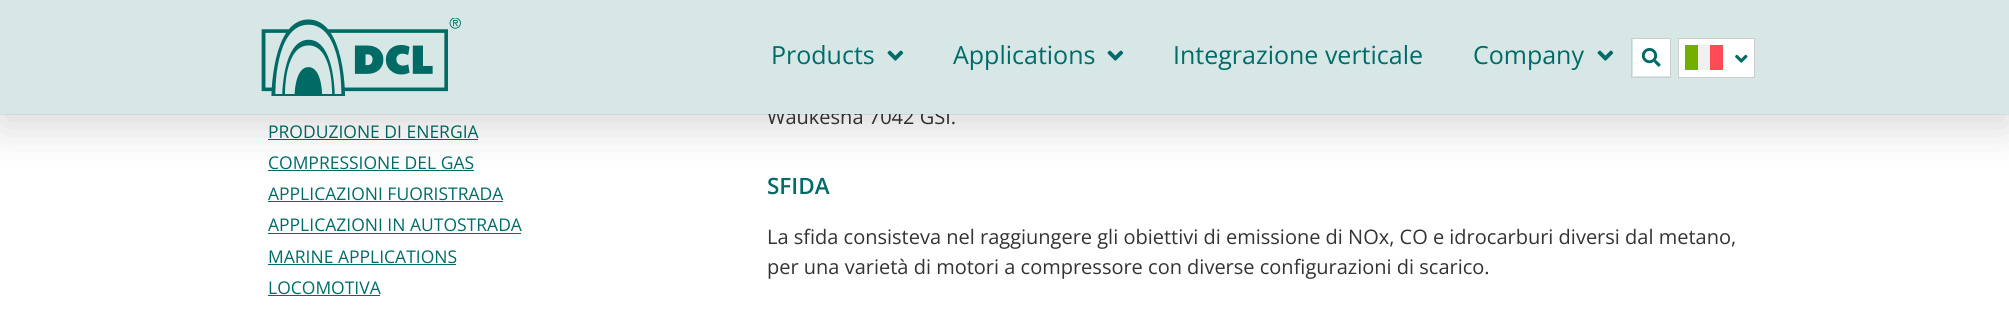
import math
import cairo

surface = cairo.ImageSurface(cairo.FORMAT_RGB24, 2009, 313)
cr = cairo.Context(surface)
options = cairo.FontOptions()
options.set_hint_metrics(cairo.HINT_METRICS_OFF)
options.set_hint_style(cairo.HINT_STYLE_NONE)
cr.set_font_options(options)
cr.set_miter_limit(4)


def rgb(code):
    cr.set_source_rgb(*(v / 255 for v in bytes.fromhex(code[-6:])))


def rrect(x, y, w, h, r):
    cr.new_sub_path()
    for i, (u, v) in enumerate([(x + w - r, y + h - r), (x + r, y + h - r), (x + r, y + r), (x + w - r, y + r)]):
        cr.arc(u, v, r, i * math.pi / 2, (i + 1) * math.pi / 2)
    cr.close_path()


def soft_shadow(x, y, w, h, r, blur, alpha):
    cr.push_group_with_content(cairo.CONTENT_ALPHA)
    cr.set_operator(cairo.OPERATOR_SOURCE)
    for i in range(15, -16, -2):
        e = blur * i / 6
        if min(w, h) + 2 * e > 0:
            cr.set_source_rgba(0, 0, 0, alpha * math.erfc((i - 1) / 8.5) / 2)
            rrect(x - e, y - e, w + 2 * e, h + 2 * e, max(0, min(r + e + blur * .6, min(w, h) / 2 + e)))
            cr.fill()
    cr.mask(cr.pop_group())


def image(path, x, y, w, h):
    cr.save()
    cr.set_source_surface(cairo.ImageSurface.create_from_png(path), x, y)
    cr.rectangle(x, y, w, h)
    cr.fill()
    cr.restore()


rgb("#ffffff")
cr.paint()
for x, y, w, h, color in [
    (268, 139, 210, 1, "#006b68"),
    (268, 170, 206, 1, "#006b68"),
    (268, 201, 235, 1, "#006b68"),
    (268, 233, 253, 1, "#006b68"),
    (268, 264, 188, 1, "#006b68"),
    (268, 295, 112, 1, "#006b68"),
]:
    rgb(color)
    cr.rectangle(x, y, w, h)
    cr.fill()
cr.select_font_face("Open Sans")
cr.set_font_size(17.5)
for x, y, s in [
    (268, 138, "PRODUZIONE DI ENERGIA"),
    (268, 169, "COMPRESSIONE DEL GAS"),
    (268, 200, "APPLICAZIONI FUORISTRADA"),
    (268, 231, "APPLICAZIONI IN AUTOSTRADA"),
    (268, 263, "MARINE APPLICATIONS"),
    (268, 294, "LOCOMOTIVA"),
]:
    cr.move_to(x, y)
    cr.show_text(s)
cr.set_font_size(20)
rgb("#333333")
cr.move_to(767, 124)
cr.show_text("Waukesha 7042 GSI.")
cr.rectangle(-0.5, -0.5, 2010, 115)
cr.set_source_rgba(0, 0, 0, 0.06)
cr.set_line_width(1)
cr.stroke()
rgb("#000000")
soft_shadow(0, 13, 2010, 113, 0, 22.5, 0.16)
rgb("#d7e7e6")
cr.rectangle(0, 0, 2009, 114)
cr.fill()
image("img/2.png", 1597, 50, 17, 11)
cr.set_font_size(25)
rgb("#006b68")
cr.move_to(1473, 64)
cr.show_text("Company")
cr.move_to(1173, 64)
cr.show_text("Integrazione verticale")
image("img/2.png", 1107, 50, 17, 11)
cr.move_to(953, 64)
cr.show_text("Applications")
image("img/2.png", 887, 50, 17, 11)
cr.move_to(771, 64)
cr.show_text("Products")
rgb("#ffffff")
cr.rectangle(1678.5, 38.5, 76, 39)
cr.fill_preserve()
rgb("#cdcdcd")
cr.stroke()
image("img/4.png", 1735, 54, 13, 9)
for x, y, w, h, color in [
    (1685, 45, 13, 25, "#73af00"),
    (1710, 45, 13, 25, "#ff4b55"),
    (1698, 45, 12, 25, "#f0f0f0"),
]:
    rgb(color)
    cr.rectangle(x, y, w, h)
    cr.fill()
cr.rectangle(1631.5, 38.5, 39, 39)
rgb("#cdcdcd")
cr.stroke()
rgb("#ffffff")
cr.rectangle(1633, 39, 37, 37)
cr.fill()
image("img/3.png", 1641, 48, 20, 19)
image("img/1.png", 261, 18, 200, 78)
cr.select_font_face("Open Sans SemiBold")
cr.set_font_size(22.5)
rgb("#006b68")
cr.move_to(767, 194)
cr.show_text("SFIDA")
cr.select_font_face("Open Sans")
cr.set_font_size(20)
rgb("#333333")
cr.move_to(767, 244)
cr.show_text("La sfida consisteva nel raggiungere gli obiettivi di emissione di NOx, CO e idrocarburi diversi dal metano,")
cr.move_to(767, 274)
cr.show_text("per una varietà di motori a compressore con diverse configurazioni di scarico.")
surface.write_to_png("page.png")
